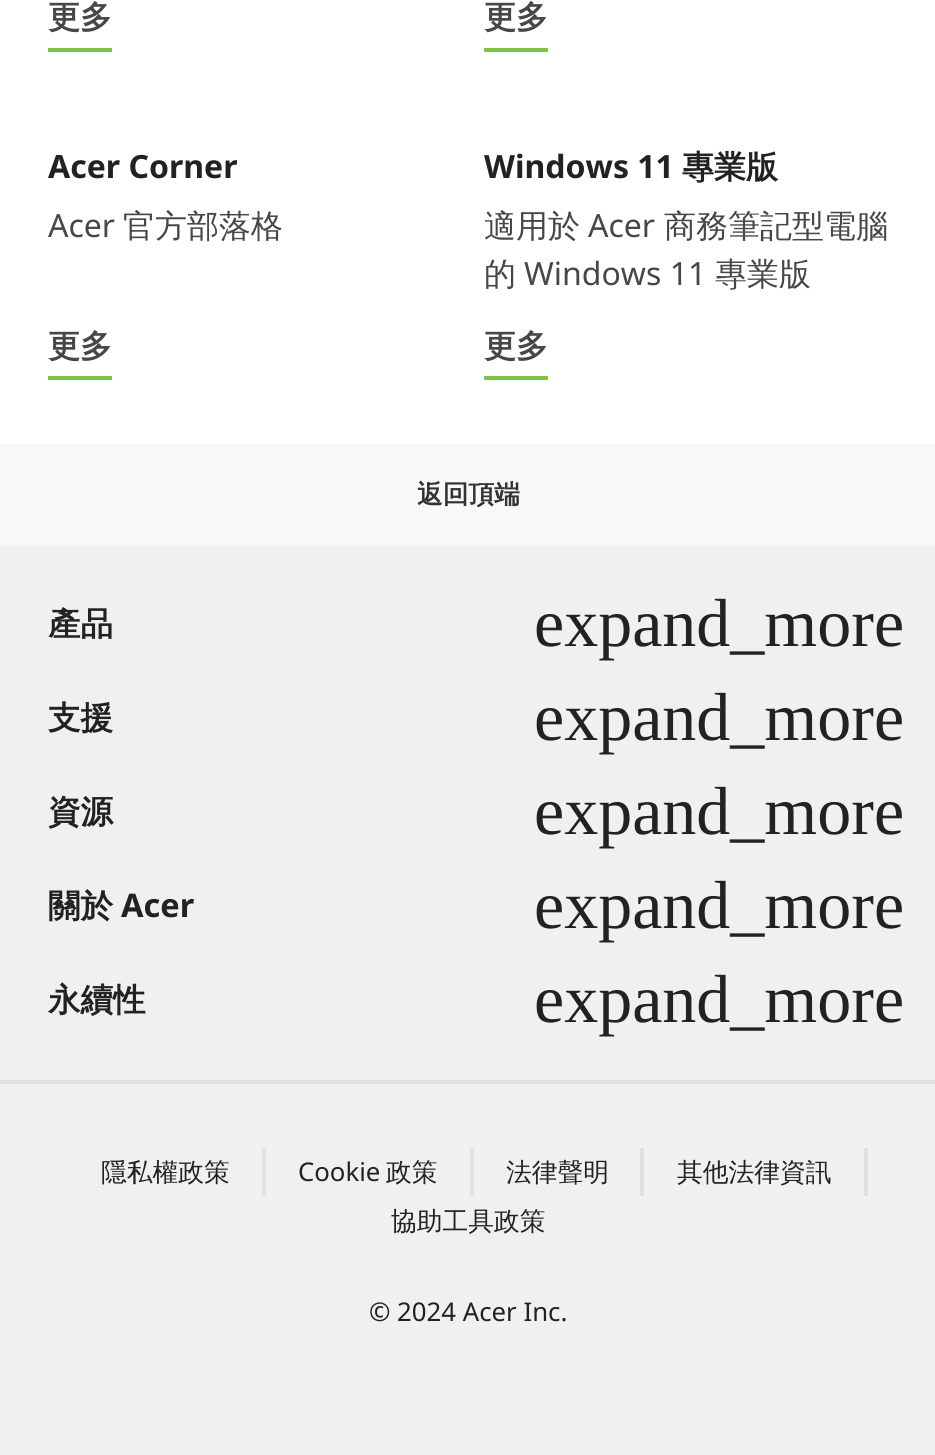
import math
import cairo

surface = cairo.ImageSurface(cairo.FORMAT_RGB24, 935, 1455)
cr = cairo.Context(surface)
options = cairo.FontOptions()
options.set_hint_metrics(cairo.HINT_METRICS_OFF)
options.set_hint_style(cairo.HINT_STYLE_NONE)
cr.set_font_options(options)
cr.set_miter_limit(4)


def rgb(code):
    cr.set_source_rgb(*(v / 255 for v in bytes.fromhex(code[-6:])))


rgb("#ffffff")
cr.paint()
for x, y, w, h, color in [
    (48, 48, 64, 4, "#80c343"),
    (484, 48, 64, 4, "#80c343"),
    (48, 376, 64, 4, "#80c343"),
    (484, 376, 64, 4, "#80c343"),
    (0, 546, 935, 909, "#f0f0f0"),
    (0, 444, 935, 102, "#f8f8f8"),
    (0, 1080, 935, 4, "#e0e0e0"),
    (262, 1148, 4, 48, "#e0e0e0"),
    (470, 1148, 4, 48, "#e0e0e0"),
    (640, 1148, 4, 48, "#e0e0e0"),
    (864, 1148, 4, 48, "#e0e0e0"),
]:
    rgb(color)
    cr.rectangle(x, y, w, h)
    cr.fill()
cr.select_font_face("WenQuanYi Zen Hei", cairo.FONT_SLANT_NORMAL, cairo.FONT_WEIGHT_BOLD)
cr.set_font_size(32)
rgb("#474747")
cr.move_to(48, 28)
cr.show_text("更多")
cr.move_to(484, 28)
cr.show_text("更多")
cr.select_font_face("Noto Sans", cairo.FONT_SLANT_NORMAL, cairo.FONT_WEIGHT_BOLD)
rgb("#222222")
cr.move_to(48, 178)
cr.show_text("Acer Corner")
cr.select_font_face("Noto Sans")
rgb("#474747")
cr.move_to(48, 237)
cr.show_text("Acer")
cr.select_font_face("WenQuanYi Zen Hei Medium")
cr.move_to(123, 237)
cr.show_text("官方部落格")
cr.select_font_face("WenQuanYi Zen Hei", cairo.FONT_SLANT_NORMAL, cairo.FONT_WEIGHT_BOLD)
cr.move_to(48, 357)
cr.show_text("更多")
cr.select_font_face("Noto Sans", cairo.FONT_SLANT_NORMAL, cairo.FONT_WEIGHT_BOLD)
rgb("#222222")
cr.move_to(484, 178)
cr.show_text("Windows 11")
cr.select_font_face("WenQuanYi Zen Hei", cairo.FONT_SLANT_NORMAL, cairo.FONT_WEIGHT_BOLD)
cr.move_to(682, 178)
cr.show_text("專業版")
cr.select_font_face("WenQuanYi Zen Hei Medium")
rgb("#474747")
cr.move_to(484, 237)
cr.show_text("適用於")
cr.select_font_face("Noto Sans")
cr.move_to(588, 237)
cr.show_text("Acer")
cr.select_font_face("WenQuanYi Zen Hei Medium")
cr.move_to(664, 237)
cr.show_text("商務筆記型電腦")
cr.move_to(484, 285)
cr.show_text("的")
cr.select_font_face("Noto Sans")
cr.move_to(524, 285)
cr.show_text("Windows 11")
cr.select_font_face("WenQuanYi Zen Hei Medium")
cr.move_to(715, 285)
cr.show_text("專業版")
cr.select_font_face("WenQuanYi Zen Hei", cairo.FONT_SLANT_NORMAL, cairo.FONT_WEIGHT_BOLD)
cr.move_to(484, 357)
cr.show_text("更多")
cr.set_font_size(25.75)
rgb("#333333")
cr.move_to(417, 503)
cr.show_text("返回頂端")
cr.set_font_size(32.5)
rgb("#222222")
cr.move_to(48, 635)
cr.show_text("產品")
cr.select_font_face("Liberation Serif")
cr.set_font_size(68)
cr.move_to(534, 646)
cr.show_text("expand_more")
cr.select_font_face("WenQuanYi Zen Hei", cairo.FONT_SLANT_NORMAL, cairo.FONT_WEIGHT_BOLD)
cr.set_font_size(32.5)
cr.move_to(48, 729)
cr.show_text("支援")
cr.select_font_face("Liberation Serif")
cr.set_font_size(68)
cr.move_to(534, 740)
cr.show_text("expand_more")
cr.select_font_face("WenQuanYi Zen Hei", cairo.FONT_SLANT_NORMAL, cairo.FONT_WEIGHT_BOLD)
cr.set_font_size(32.5)
cr.move_to(48, 823)
cr.show_text("資源")
cr.select_font_face("Liberation Serif")
cr.set_font_size(68)
cr.move_to(534, 834)
cr.show_text("expand_more")
cr.select_font_face("WenQuanYi Zen Hei", cairo.FONT_SLANT_NORMAL, cairo.FONT_WEIGHT_BOLD)
cr.set_font_size(32.5)
cr.move_to(48, 917)
cr.show_text("關於")
cr.select_font_face("Noto Sans", cairo.FONT_SLANT_NORMAL, cairo.FONT_WEIGHT_BOLD)
cr.move_to(121, 917)
cr.show_text("Acer")
cr.select_font_face("Liberation Serif")
cr.set_font_size(68)
cr.move_to(534, 928)
cr.show_text("expand_more")
cr.select_font_face("WenQuanYi Zen Hei", cairo.FONT_SLANT_NORMAL, cairo.FONT_WEIGHT_BOLD)
cr.set_font_size(32.5)
cr.move_to(48, 1011)
cr.show_text("永續性")
cr.select_font_face("Liberation Serif")
cr.set_font_size(68)
cr.move_to(534, 1022)
cr.show_text("expand_more")
cr.select_font_face("WenQuanYi Zen Hei Medium")
cr.set_font_size(25.75)
cr.move_to(101, 1181)
cr.show_text("隱私權政策")
cr.select_font_face("Noto Sans")
cr.move_to(298, 1181)
cr.show_text("Cookie")
cr.select_font_face("WenQuanYi Zen Hei Medium")
for x, y, s in [
    (386, 1181, "政策"),
    (506, 1181, "法律聲明"),
    (677, 1181, "其他法律資訊"),
    (391, 1230, "協助工具政策"),
]:
    cr.move_to(x, y)
    cr.show_text(s)
cr.select_font_face("Noto Sans")
cr.move_to(369, 1321)
cr.show_text("© 2024 Acer Inc.")
surface.write_to_png("page.png")
